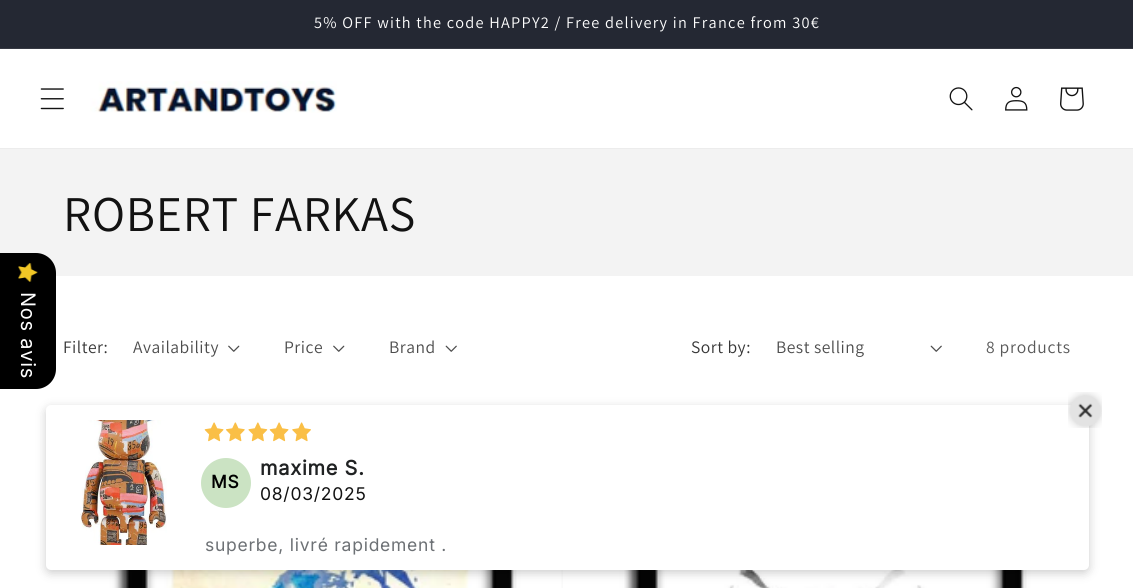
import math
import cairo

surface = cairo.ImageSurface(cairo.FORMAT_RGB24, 1133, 588)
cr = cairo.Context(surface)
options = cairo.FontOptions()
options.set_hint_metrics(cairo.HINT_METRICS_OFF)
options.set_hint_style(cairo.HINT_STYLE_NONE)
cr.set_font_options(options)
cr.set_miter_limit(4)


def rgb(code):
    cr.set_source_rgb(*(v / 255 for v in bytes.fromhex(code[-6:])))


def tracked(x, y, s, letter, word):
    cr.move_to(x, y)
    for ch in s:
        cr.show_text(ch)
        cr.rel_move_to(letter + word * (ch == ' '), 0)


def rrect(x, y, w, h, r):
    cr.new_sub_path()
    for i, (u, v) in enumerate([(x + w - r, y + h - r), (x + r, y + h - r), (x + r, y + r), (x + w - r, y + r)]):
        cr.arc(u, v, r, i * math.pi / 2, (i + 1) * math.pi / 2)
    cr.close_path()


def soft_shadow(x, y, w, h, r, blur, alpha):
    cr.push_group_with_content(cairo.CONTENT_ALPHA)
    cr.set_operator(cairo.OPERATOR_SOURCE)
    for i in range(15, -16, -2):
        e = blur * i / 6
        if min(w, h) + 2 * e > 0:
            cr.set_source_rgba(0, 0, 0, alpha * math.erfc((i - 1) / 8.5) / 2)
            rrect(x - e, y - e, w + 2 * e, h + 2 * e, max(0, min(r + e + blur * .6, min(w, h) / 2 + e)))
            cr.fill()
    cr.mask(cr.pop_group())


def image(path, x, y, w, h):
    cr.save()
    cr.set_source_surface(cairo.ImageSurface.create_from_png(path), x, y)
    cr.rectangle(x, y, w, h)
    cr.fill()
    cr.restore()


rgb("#ffffff")
cr.paint()
for x, y, w, h, color in [
    (0, 0, 1133, 48, "#242833"),
    (0, 48, 1133, 1, "#363943"),
    (0, 148, 1133, 1, "#ececec"),
]:
    rgb(color)
    cr.rectangle(x, y, w, h)
    cr.fill()
image("img/1.png", 40, 88, 24, 22)
image("img/2.png", 90, 81, 247, 32)
image("img/3.png", 949, 87, 24, 24)
image("img/4.png", 1005, 86, 23, 25)
image("img/5.png", 1060, 87, 24, 24)
rgb("#f3f3f3")
cr.rectangle(0, 149, 1133, 127)
cr.fill()
rgb("#000000")
cr.new_path()
cr.move_to(56, 273)
cr.line_to(56, 369)
cr.curve_to(56, 380, 47, 389, 36, 389)
cr.line_to(0, 389)
cr.line_to(0, 253)
cr.line_to(36, 253)
cr.curve_to(47, 253, 56, 262, 56, 273)
cr.close_path()
cr.fill()
image("img/6.png", 18, 263, 20, 19)
image("img/7.png", 228, 345, 12, 7)
image("img/7.png", 333, 345, 12, 7)
image("img/8.png", 445, 345, 12, 7)
image("img/8.png", 930, 345, 12, 7)
rgb("#f3f3f3")
cr.rectangle(561, 570, 2, 18)
cr.fill()
image("img/9.png", 63, 570, 500, 18)
image("img/10.png", 573, 570, 498, 18)
rgb("#000000")
soft_shadow(46, 408, 1043, 165, 5, 5, 0.2)
rgb("#ffffff")
rrect(46, 405, 1043, 165, 5)
cr.fill()
image("img/11.png", 1068, 392, 34, 36)
image("img/12.png", 80, 420, 87, 125)
image("img/13.png", 204, 422, 20, 20)
image("img/14.png", 226, 422, 19, 20)
image("img/15.png", 248, 422, 20, 20)
image("img/13.png", 269, 422, 20, 20)
image("img/16.png", 292, 422, 19, 20)
rgb("#cbe3c3")
cr.arc(226, 483, 25, 0, 2 * math.pi)
cr.fill()
cr.select_font_face("Assistant")
cr.set_font_size(16.25)
rgb("#ffffff")
tracked(314, 28, "5% OFF with the code HAPPY2 / Free delivery in France from 30€", 1.25, 0)
cr.select_font_face("Inter")
cr.set_font_size(20)
cr.save()
cr.translate(21, 292)
cr.rotate(90 * math.pi / 180)
tracked(0, 0, "Nos avis", 0.75, 0)
cr.restore()
cr.select_font_face("Assistant")
cr.set_font_size(50)
rgb("#121212")
tracked(63, 231, "ROBERT FARKAS", 0.75, 0)
cr.set_font_size(17.5)
rgb("#363636")
tracked(63, 353, "Filter:", 0.5, 0)
rgb("#4d4d4d")
for x, y, s in [
    (133, 353, "Availability"),
    (284, 353, "Price"),
    (389, 353, "Brand"),
]:
    tracked(x, y, s, 0.5, 0)
rgb("#363636")
tracked(691, 353, "Sort by:", 0.5, 0)
rgb("#4d4d4d")
tracked(776, 353, "Best selling", 0.5, 0)
rgb("#595959")
tracked(986, 353, "8 products", 0.75, 0)
cr.select_font_face("Inter", cairo.FONT_SLANT_NORMAL, cairo.FONT_WEIGHT_BOLD)
rgb("#000000")
tracked(211, 488, "MS", 0.75, 0)
cr.set_font_size(20)
rgb("#202223")
tracked(260, 475, "maxime S.", 0.75, 0)
cr.select_font_face("Inter")
cr.set_font_size(17.5)
rgb("#121212")
tracked(260, 500, "08/03/2025", 0.75, 0)
rgb("#6d7175")
tracked(205, 551, "superbe, livré rapidement .", 0.75, 0)
surface.write_to_png("page.png")
